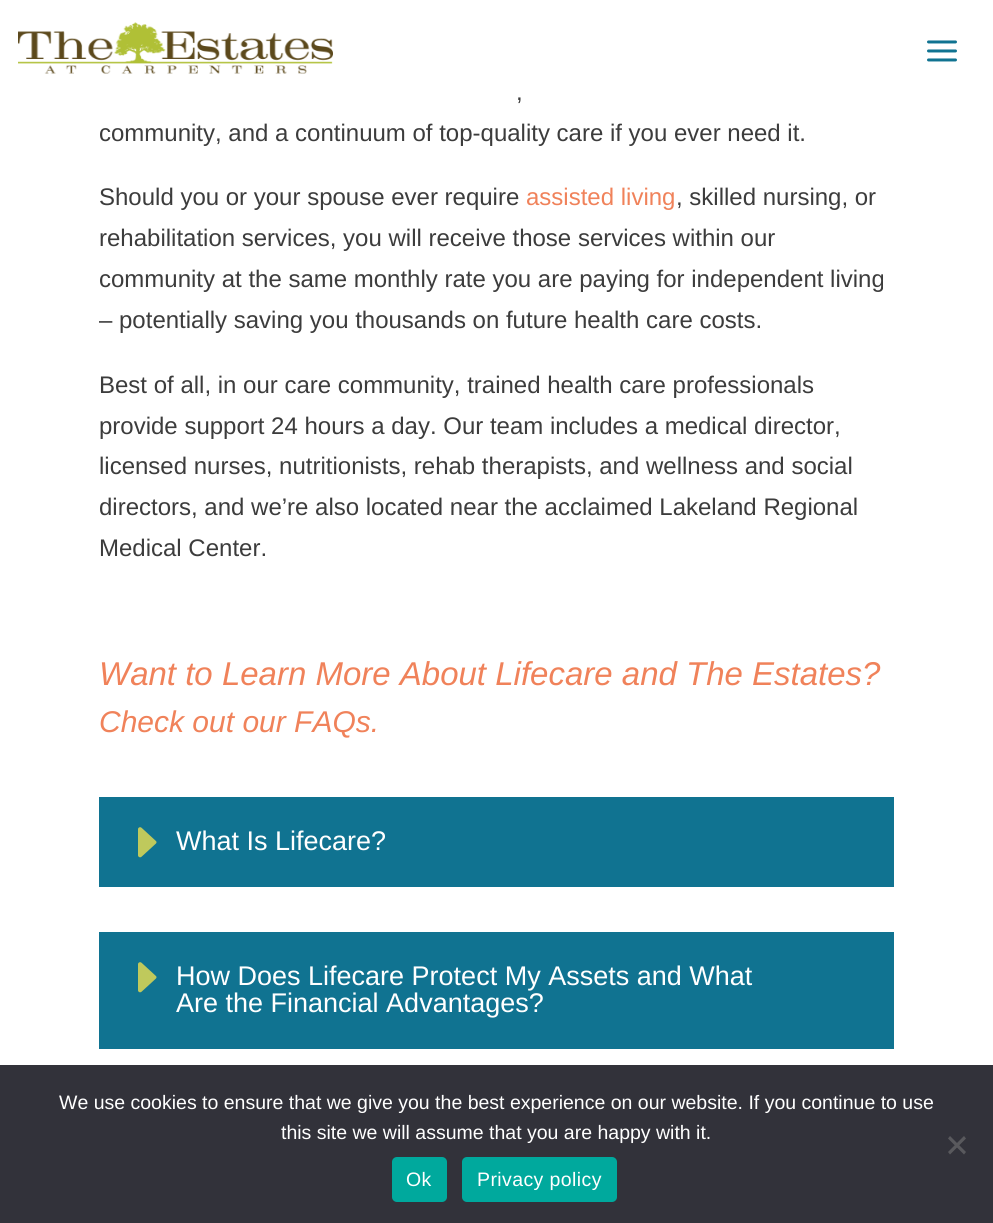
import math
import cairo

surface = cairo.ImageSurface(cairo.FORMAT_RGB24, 993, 1223)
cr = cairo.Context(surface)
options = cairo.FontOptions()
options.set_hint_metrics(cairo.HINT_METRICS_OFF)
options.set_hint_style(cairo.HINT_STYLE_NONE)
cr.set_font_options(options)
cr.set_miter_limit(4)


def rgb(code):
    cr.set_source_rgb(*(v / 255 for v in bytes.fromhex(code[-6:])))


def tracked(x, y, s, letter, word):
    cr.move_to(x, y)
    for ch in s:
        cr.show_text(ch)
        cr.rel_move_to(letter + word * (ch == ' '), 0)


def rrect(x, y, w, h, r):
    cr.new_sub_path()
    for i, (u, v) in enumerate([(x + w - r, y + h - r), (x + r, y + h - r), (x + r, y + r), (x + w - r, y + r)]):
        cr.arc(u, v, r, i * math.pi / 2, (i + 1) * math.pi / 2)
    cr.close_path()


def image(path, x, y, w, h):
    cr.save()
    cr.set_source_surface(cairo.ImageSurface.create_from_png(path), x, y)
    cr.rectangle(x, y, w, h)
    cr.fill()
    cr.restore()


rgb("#ffffff")
cr.paint()
image("img/1.png", 18, 22, 315, 52)
image("img/2.png", 927, 40, 30, 22)
rgb("#107391")
cr.rectangle(99, 797, 795, 90)
cr.fill()
image("img/3.png", 138, 827, 19, 31)
cr.rectangle(99, 932, 795, 117)
cr.fill()
image("img/3.png", 138, 962, 19, 31)
rgb("#32323a")
cr.rectangle(0, 1065, 993, 158)
cr.fill()
rgb("#59595d")
cr.new_path()
cr.move_to(964, 1136)
cr.line_to(966, 1138.5)
cr.line_to(950, 1154.5)
cr.line_to(948, 1152)
cr.close_path()
cr.fill()
cr.new_path()
cr.move_to(948, 1138.5)
cr.line_to(950, 1136)
cr.line_to(966, 1152)
cr.line_to(964, 1154.5)
cr.close_path()
cr.fill()
rgb("#00a99d")
rrect(392, 1157, 55, 45, 5)
cr.fill()
rrect(462, 1157, 155, 45, 5)
cr.fill()
cr.select_font_face("Liberation Sans")
cr.set_font_size(24)
rgb("#3c3c3c")
for x, y, s in [
    (516, 100, ","),
    (99, 141, "community, and a continuum of top-quality care if you ever need it."),
    (99, 205, "Should you or your spouse ever require"),
]:
    cr.move_to(x, y)
    cr.show_text(s)
rgb("#f0825a")
cr.move_to(526, 205)
cr.show_text("assisted living")
rgb("#3c3c3c")
for x, y, s in [
    (676, 205, ", skilled nursing, or"),
    (99, 246, "rehabilitation services, you will receive those services within our"),
    (99, 287, "community at the same monthly rate you are paying for independent living"),
    (99, 328, "– potentially saving you thousands on future health care costs."),
    (99, 393, "Best of all, in our care community, trained health care professionals"),
    (99, 434, "provide support 24 hours a day. Our team includes a medical director,"),
    (99, 474, "licensed nurses, nutritionists, rehab therapists, and wellness and social"),
    (99, 515, "directors, and we’re also located near the acclaimed Lakeland Regional"),
    (99, 556, "Medical Center."),
]:
    cr.move_to(x, y)
    cr.show_text(s)
cr.select_font_face("Liberation Sans", cairo.FONT_SLANT_ITALIC)
cr.set_font_size(33)
rgb("#f0825a")
cr.move_to(99, 685)
cr.show_text("Want to Learn More About Lifecare and The Estates?")
cr.set_font_size(30)
cr.move_to(99, 732)
cr.show_text("Check out our FAQs.")
cr.select_font_face("Liberation Sans")
cr.set_font_size(27)
rgb("#ffffff")
for x, y, s in [
    (176, 850, "What Is Lifecare?"),
    (176, 985, "How Does Lifecare Protect My Assets and What"),
    (176, 1012, "Are the Financial Advantages?"),
]:
    cr.move_to(x, y)
    cr.show_text(s)
cr.set_font_size(19.5)
cr.move_to(59, 1109)
cr.show_text("We use cookies to ensure that we give you the best experience on our website. If you continue to use")
cr.move_to(281, 1139)
cr.show_text("this site we will assume that you are happy with it.")
tracked(406, 1186, "Ok", 0.4, 0)
tracked(477, 1186, "Privacy policy", 0.4, 0)
surface.write_to_png("page.png")
